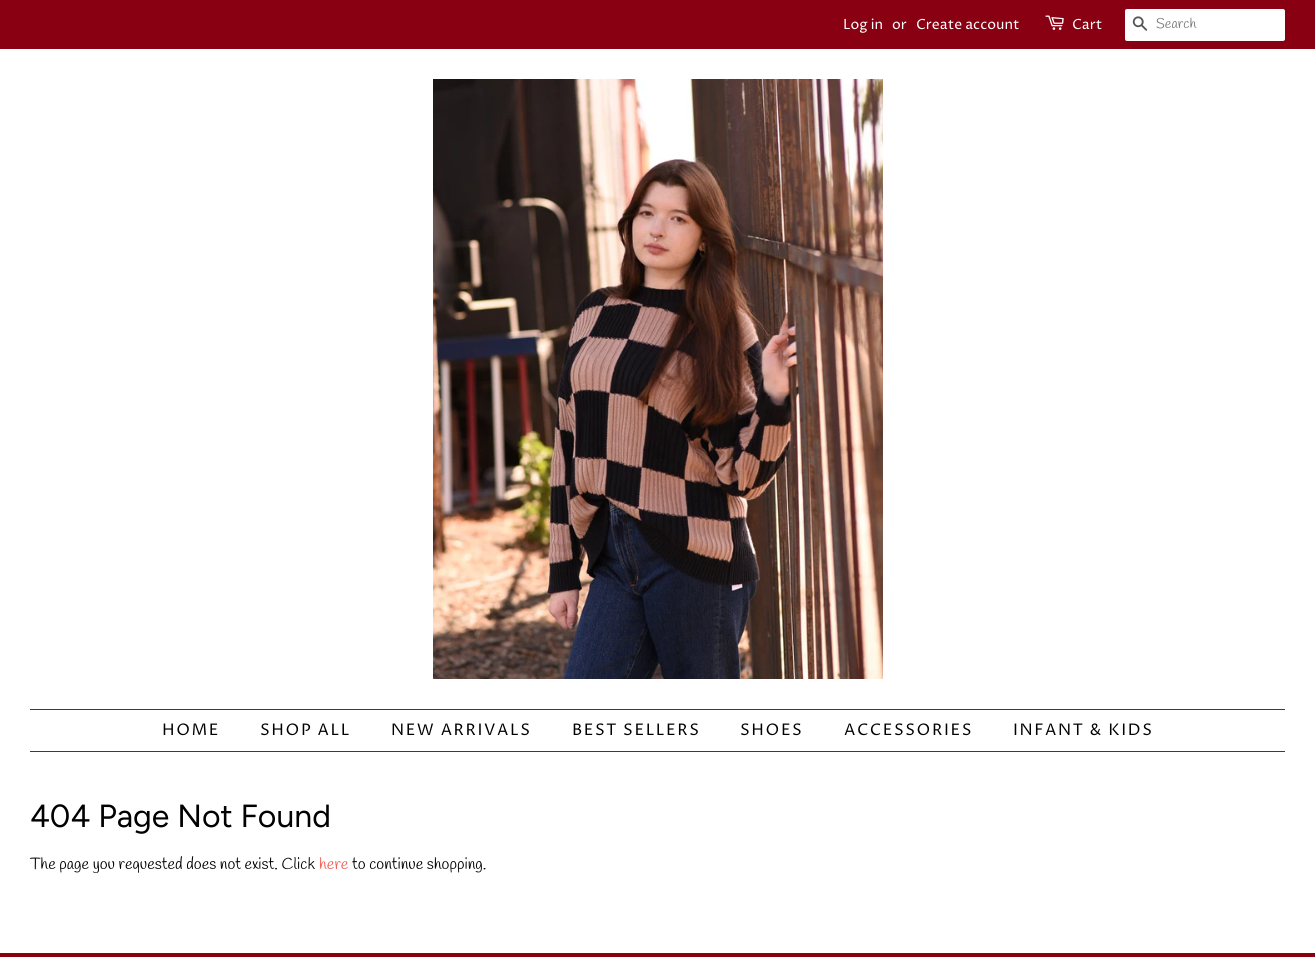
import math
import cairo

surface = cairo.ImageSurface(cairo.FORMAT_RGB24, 1315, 957)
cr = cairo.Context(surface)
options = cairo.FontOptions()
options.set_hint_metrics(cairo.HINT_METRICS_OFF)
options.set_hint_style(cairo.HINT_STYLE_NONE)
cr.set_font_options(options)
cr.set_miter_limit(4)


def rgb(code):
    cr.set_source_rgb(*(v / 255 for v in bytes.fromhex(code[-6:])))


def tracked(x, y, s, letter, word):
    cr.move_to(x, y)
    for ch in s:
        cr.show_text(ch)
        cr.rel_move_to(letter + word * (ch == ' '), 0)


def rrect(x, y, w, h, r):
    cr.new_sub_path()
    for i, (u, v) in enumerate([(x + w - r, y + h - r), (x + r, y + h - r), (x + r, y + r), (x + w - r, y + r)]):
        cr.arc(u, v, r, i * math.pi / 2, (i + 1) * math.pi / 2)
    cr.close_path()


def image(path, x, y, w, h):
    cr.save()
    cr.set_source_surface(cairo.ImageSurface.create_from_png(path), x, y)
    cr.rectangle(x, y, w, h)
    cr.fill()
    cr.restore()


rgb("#ffffff")
cr.paint()
rgb("#890012")
cr.rectangle(0, 0, 1315, 49)
cr.fill()
image("img/1.png", 1045, 15, 19, 15)
rgb("#ffffff")
rrect(1125, 9, 160, 32, 2)
cr.fill()
image("img/2.png", 1132, 16, 16, 15)
image("img/3.png", 433, 79, 450, 600)
for x, y, w, h, color in [
    (30, 709, 1255, 1, "#403b37"),
    (30, 751, 1255, 1, "#403b37"),
    (0, 953, 1315, 4, "#890012"),
]:
    rgb(color)
    cr.rectangle(x, y, w, h)
    cr.fill()
cr.select_font_face("Proza Libre")
cr.set_font_size(14)
rgb("#ffffff")
for x, y, s in [
    (843, 29, "Log in"),
    (892, 29, "or"),
    (916, 29, "Create account"),
    (1072, 29, "Cart"),
]:
    cr.move_to(x, y)
    cr.show_text(s)
cr.select_font_face("Handlee")
rgb("#757575")
cr.move_to(1156, 28)
cr.show_text("Search")
cr.select_font_face("Proza Libre")
cr.set_font_size(16)
rgb("#000000")
for x, y, s in [
    (162, 735, "HOME"),
    (260, 735, "SHOP ALL"),
    (391, 735, "NEW ARRIVALS"),
    (572, 735, "BEST SELLERS"),
    (740, 735, "SHOES"),
    (844, 735, "ACCESSORIES"),
    (1013, 735, "INFANT & KIDS"),
]:
    tracked(x, y, s, 1.6, 0)
cr.select_font_face("Figtree")
cr.set_font_size(32)
cr.move_to(30, 827)
cr.show_text("404 Page Not Found")
cr.select_font_face("Handlee")
cr.set_font_size(16)
cr.move_to(30, 869)
cr.show_text("The page you requested does not exist. Click")
rgb("#f25c54")
cr.move_to(319, 869)
cr.show_text("here")
rgb("#000000")
cr.move_to(352, 869)
cr.show_text("to continue shopping.")
surface.write_to_png("page.png")
